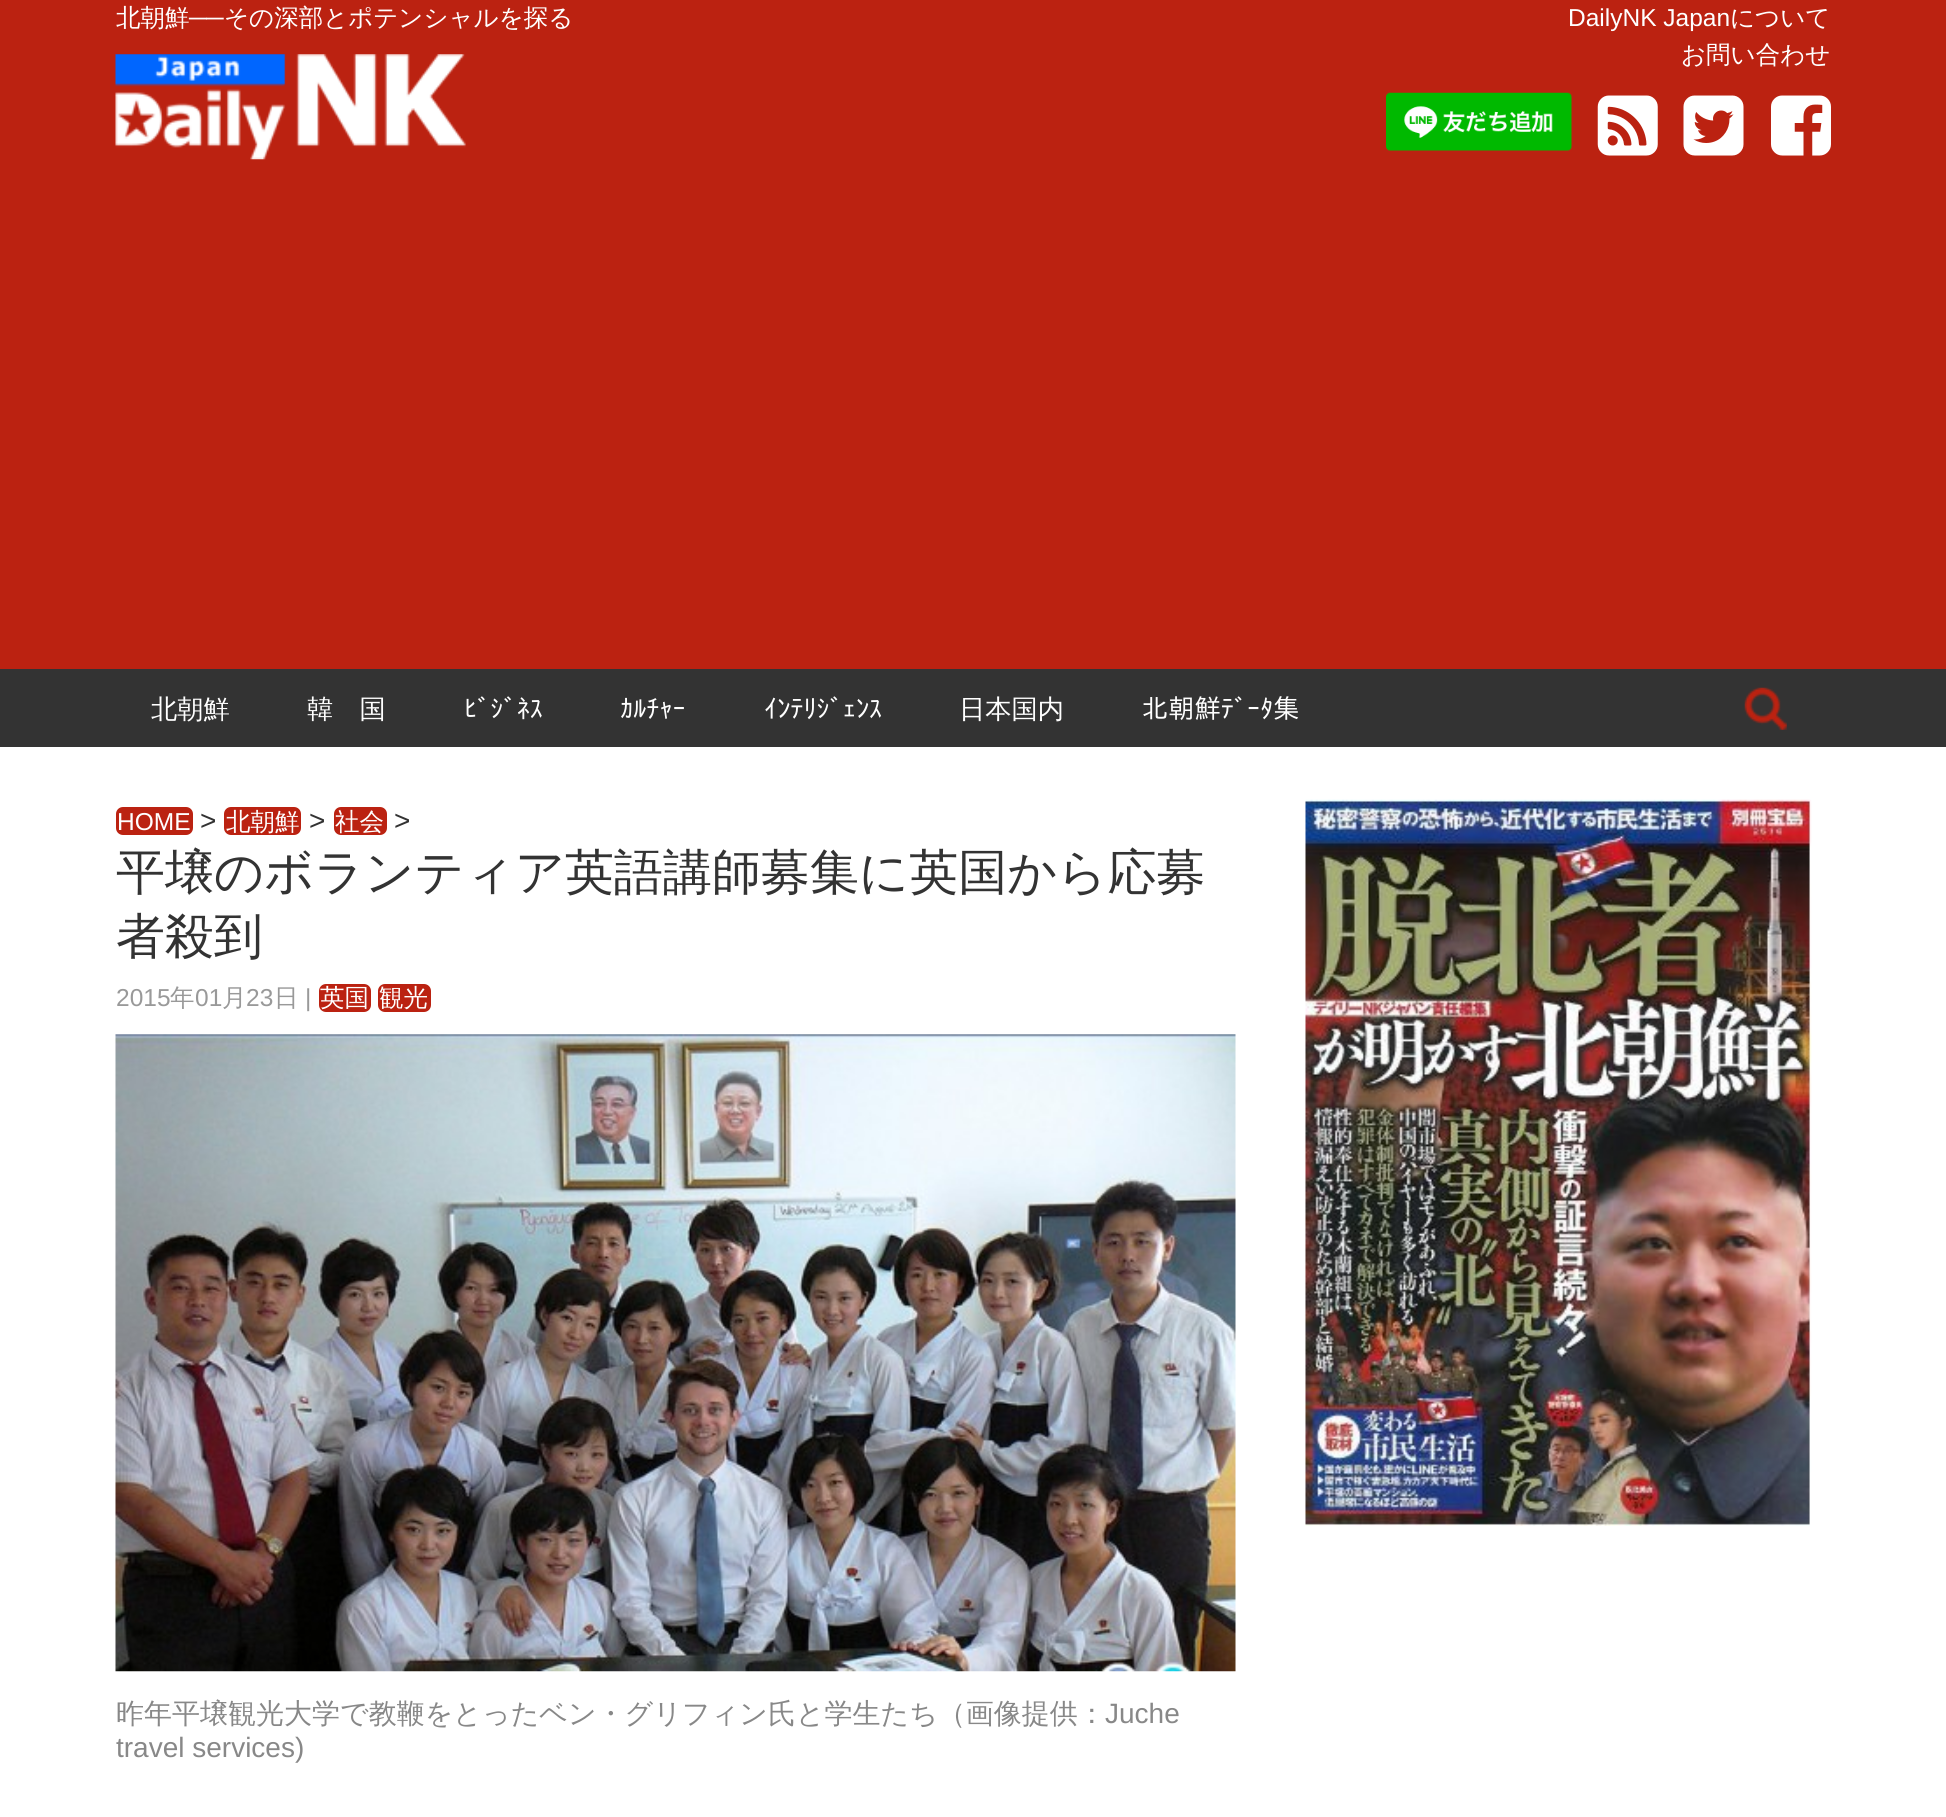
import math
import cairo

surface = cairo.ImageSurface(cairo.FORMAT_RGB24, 1946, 1817)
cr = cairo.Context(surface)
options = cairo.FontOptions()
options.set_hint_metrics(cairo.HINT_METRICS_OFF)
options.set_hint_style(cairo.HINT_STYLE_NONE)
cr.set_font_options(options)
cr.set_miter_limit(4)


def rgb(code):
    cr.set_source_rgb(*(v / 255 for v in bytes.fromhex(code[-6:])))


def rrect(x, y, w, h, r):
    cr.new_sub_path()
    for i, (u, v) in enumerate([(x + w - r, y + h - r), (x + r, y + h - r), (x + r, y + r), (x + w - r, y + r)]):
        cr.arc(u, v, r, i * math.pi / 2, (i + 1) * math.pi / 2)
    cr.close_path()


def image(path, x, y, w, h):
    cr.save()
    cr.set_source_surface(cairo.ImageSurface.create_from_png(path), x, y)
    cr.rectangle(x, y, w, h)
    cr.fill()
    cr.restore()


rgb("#ffffff")
cr.paint()
rgb("#bb2211")
cr.rectangle(0, 0, 1946, 669)
cr.fill()
image("img/1.png", 115, 54, 351, 106)
image("img/2.png", 1386, 92, 186, 59)
image("img/3.png", 1597, 95, 61, 61)
image("img/4.png", 1683, 95, 61, 61)
image("img/5.png", 1771, 95, 60, 61)
rgb("#333333")
cr.rectangle(0, 669, 1946, 78)
cr.fill()
image("img/6.png", 1744, 687, 43, 43)
rgb("#bb2211")
rrect(116, 807, 77, 28, 7)
cr.fill()
rrect(224, 807, 77, 28, 7)
cr.fill()
rrect(334, 807, 53, 28, 7)
cr.fill()
rrect(319, 984, 52, 28, 7)
cr.fill()
rrect(378, 984, 53, 28, 7)
cr.fill()
image("img/7.png", 115, 1034, 1121, 638)
image("img/8.png", 1305, 799, 507, 727)
cr.select_font_face("WenQuanYi Zen Hei Medium")
cr.set_font_size(24.5)
rgb("#ffffff")
cr.move_to(116, 26)
cr.show_text("北朝鮮")
cr.select_font_face("Liberation Sans")
cr.move_to(189, 26)
cr.show_text("──")
cr.select_font_face("WenQuanYi Zen Hei Medium")
cr.move_to(224, 26)
cr.show_text("その深部とポテンシャルを探る")
cr.select_font_face("Liberation Sans")
cr.move_to(1568, 26)
cr.show_text("DailyNK Japan")
cr.select_font_face("WenQuanYi Zen Hei Medium")
cr.move_to(1730, 26)
cr.show_text("について")
cr.move_to(1681, 63)
cr.show_text("お問い合わせ")
cr.set_font_size(26.25)
cr.move_to(151, 718)
cr.show_text("北朝鮮")
cr.move_to(307, 718)
cr.show_text("韓　国")
cr.select_font_face("IPAPGothic")
for x, y, s in [
    (464, 718, "ﾋﾞｼﾞﾈｽ"),
    (620, 718, "ｶﾙﾁｬｰ"),
    (764, 718, "ｲﾝﾃﾘｼﾞｪﾝｽ"),
]:
    cr.move_to(x, y)
    cr.show_text(s)
cr.select_font_face("WenQuanYi Zen Hei Medium")
cr.move_to(959, 718)
cr.show_text("日本国内")
cr.select_font_face("IPAPGothic")
cr.move_to(1142, 718)
cr.show_text("北朝鮮ﾃﾞｰﾀ集")
cr.select_font_face("Liberation Sans")
cr.set_font_size(24.5)
cr.move_to(117, 830)
cr.show_text("HOME")
cr.set_font_size(28)
rgb("#333333")
cr.move_to(200, 830)
cr.show_text(">")
cr.select_font_face("WenQuanYi Zen Hei Medium")
cr.set_font_size(24.5)
rgb("#ffffff")
cr.move_to(226, 830)
cr.show_text("北朝鮮")
cr.select_font_face("Liberation Sans")
cr.set_font_size(28)
rgb("#333333")
cr.move_to(309, 830)
cr.show_text(">")
cr.select_font_face("WenQuanYi Zen Hei Medium")
cr.set_font_size(24.5)
rgb("#ffffff")
cr.move_to(335, 830)
cr.show_text("社会")
cr.select_font_face("Liberation Sans")
cr.set_font_size(28)
rgb("#333333")
cr.move_to(394, 830)
cr.show_text(">")
cr.select_font_face("WenQuanYi Zen Hei Medium")
cr.set_font_size(49)
cr.move_to(116, 889)
cr.show_text("平壌のボランティア英語講師募集に英国から応募")
cr.move_to(116, 953)
cr.show_text("者殺到")
cr.select_font_face("Liberation Sans")
cr.set_font_size(24.5)
rgb("#999999")
cr.move_to(116, 1006)
cr.show_text("2015")
cr.select_font_face("WenQuanYi Zen Hei Medium")
cr.move_to(170, 1006)
cr.show_text("年")
cr.select_font_face("Liberation Sans")
cr.move_to(195, 1006)
cr.show_text("01")
cr.select_font_face("WenQuanYi Zen Hei Medium")
cr.move_to(222, 1006)
cr.show_text("月")
cr.select_font_face("Liberation Sans")
cr.move_to(246, 1006)
cr.show_text("23")
cr.select_font_face("WenQuanYi Zen Hei Medium")
cr.move_to(274, 1006)
cr.show_text("日")
cr.select_font_face("Liberation Sans")
cr.move_to(305, 1006)
cr.show_text("|")
cr.select_font_face("WenQuanYi Zen Hei Medium")
rgb("#ffffff")
cr.move_to(320, 1006)
cr.show_text("英国")
cr.move_to(379, 1006)
cr.show_text("観光")
cr.set_font_size(28)
rgb("#888888")
cr.move_to(116, 1723)
cr.show_text("昨年平壌観光大学で教鞭をとったベン・グリフィン氏と学生たち（画像提供：")
cr.select_font_face("Liberation Sans")
cr.move_to(1105, 1723)
cr.show_text("Juche")
cr.move_to(116, 1757)
cr.show_text("travel services)")
surface.write_to_png("page.png")
